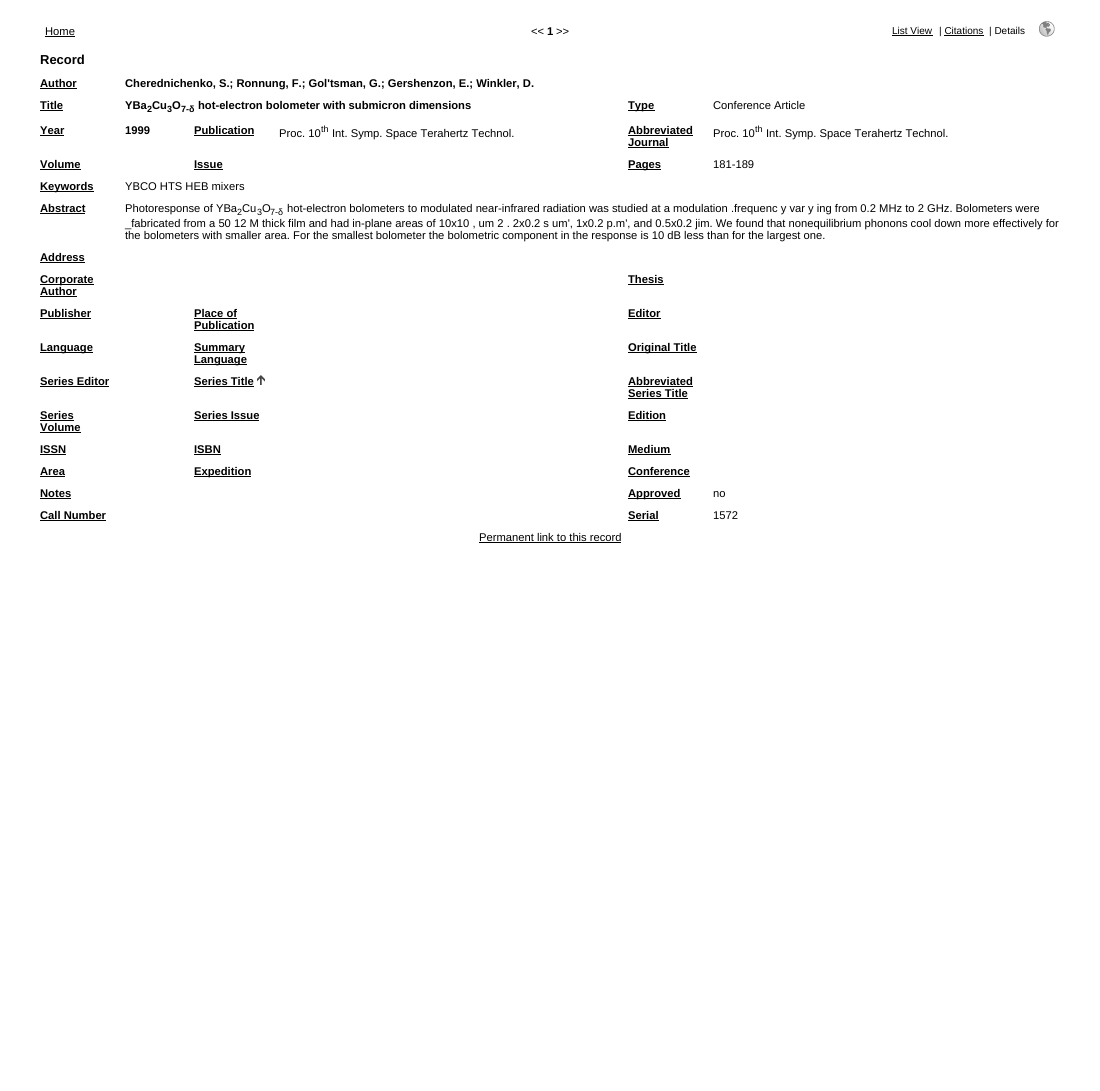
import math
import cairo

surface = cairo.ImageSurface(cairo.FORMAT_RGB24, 1100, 1091)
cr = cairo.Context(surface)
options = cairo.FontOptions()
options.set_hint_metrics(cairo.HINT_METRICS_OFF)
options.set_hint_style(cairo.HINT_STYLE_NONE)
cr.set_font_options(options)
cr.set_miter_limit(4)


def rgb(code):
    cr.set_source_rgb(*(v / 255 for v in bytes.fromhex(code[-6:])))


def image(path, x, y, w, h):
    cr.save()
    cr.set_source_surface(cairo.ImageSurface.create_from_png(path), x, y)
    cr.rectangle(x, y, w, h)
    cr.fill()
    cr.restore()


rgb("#ffffff")
cr.paint()
for x, y, w, h, color in [
    (45, 36, 30, 1, "#000000"),
    (892, 35, 41, 1, "#000000"),
    (944, 35, 40, 1, "#000000"),
]:
    rgb(color)
    cr.rectangle(x, y, w, h)
    cr.fill()
image("img/1.png", 1039, 21, 16, 16)
for x, y, w, h, color in [
    (40, 88, 37, 1, "#000000"),
    (40, 110, 23, 1, "#000000"),
    (628, 110, 27, 1, "#000000"),
    (40, 135, 24, 1, "#000000"),
    (194, 135, 60, 1, "#000000"),
    (628, 135, 65, 1, "#000000"),
    (628, 147, 41, 1, "#000000"),
    (40, 169, 41, 1, "#000000"),
    (194, 169, 29, 1, "#000000"),
    (628, 169, 33, 1, "#000000"),
    (40, 191, 54, 1, "#000000"),
    (40, 213, 45, 1, "#000000"),
    (40, 262, 45, 1, "#000000"),
    (40, 284, 54, 1, "#000000"),
    (40, 296, 37, 1, "#000000"),
    (628, 284, 36, 1, "#000000"),
    (40, 318, 51, 1, "#000000"),
    (194, 318, 43, 1, "#000000"),
    (194, 330, 60, 1, "#000000"),
    (628, 318, 33, 1, "#000000"),
    (40, 352, 53, 1, "#000000"),
    (194, 352, 51, 1, "#000000"),
    (194, 364, 53, 1, "#000000"),
    (628, 352, 69, 1, "#000000"),
    (40, 386, 69, 1, "#000000"),
    (194, 386, 60, 1, "#000000"),
]:
    rgb(color)
    cr.rectangle(x, y, w, h)
    cr.fill()
image("img/2.png", 257, 375, 8, 10)
for x, y, w, h, color in [
    (628, 386, 65, 1, "#000000"),
    (628, 398, 60, 1, "#000000"),
    (40, 420, 34, 1, "#000000"),
    (40, 432, 41, 1, "#000000"),
    (194, 420, 65, 1, "#000000"),
    (628, 420, 38, 1, "#000000"),
    (40, 454, 26, 1, "#000000"),
    (194, 454, 27, 1, "#000000"),
    (628, 454, 43, 1, "#000000"),
    (40, 476, 25, 1, "#000000"),
    (194, 476, 57, 1, "#000000"),
    (628, 476, 62, 1, "#000000"),
    (40, 498, 31, 1, "#000000"),
    (628, 498, 53, 1, "#000000"),
    (40, 520, 66, 1, "#000000"),
    (628, 520, 31, 1, "#000000"),
    (479, 542, 142, 1, "#000000"),
]:
    rgb(color)
    cr.rectangle(x, y, w, h)
    cr.fill()
cr.select_font_face("Liberation Sans")
cr.set_font_size(11.2)
cr.move_to(45, 35)
cr.show_text("Home")
cr.move_to(531, 35)
cr.show_text("<<")
cr.select_font_face("Liberation Sans", cairo.FONT_SLANT_NORMAL, cairo.FONT_WEIGHT_BOLD)
cr.move_to(547, 35)
cr.show_text("1")
cr.select_font_face("Liberation Sans")
cr.move_to(556, 35)
cr.show_text(">>")
cr.set_font_size(10)
for x, y, s in [
    (892, 34, "List View"),
    (939, 34, "| Citations"),
    (989, 34, "| Details"),
]:
    cr.move_to(x, y)
    cr.show_text(s)
cr.select_font_face("Liberation Sans", cairo.FONT_SLANT_NORMAL, cairo.FONT_WEIGHT_BOLD)
cr.set_font_size(13)
cr.move_to(40, 64)
cr.show_text("Record")
cr.set_font_size(11.2)
for x, y, s in [
    (40, 87, "Author"),
    (125, 87, "Cherednichenko, S.; Ronnung, F.; Gol'tsman, G.; Gershenzon, E.; Winkler, D."),
    (40, 109, "Title"),
    (125, 109, "YBa"),
]:
    cr.move_to(x, y)
    cr.show_text(s)
cr.set_font_size(9)
cr.move_to(147, 112)
cr.show_text("2")
cr.set_font_size(11.2)
cr.move_to(152, 109)
cr.show_text("Cu")
cr.set_font_size(9)
cr.move_to(167, 112)
cr.show_text("3")
cr.set_font_size(11.2)
cr.move_to(172, 109)
cr.show_text("O")
cr.set_font_size(9)
cr.move_to(181, 112)
cr.show_text("7-δ")
cr.set_font_size(11.2)
cr.move_to(198, 109)
cr.show_text("hot-electron bolometer with submicron dimensions")
cr.move_to(628, 109)
cr.show_text("Type")
cr.select_font_face("Liberation Sans")
cr.move_to(713, 109)
cr.show_text("Conference Article")
cr.select_font_face("Liberation Sans", cairo.FONT_SLANT_NORMAL, cairo.FONT_WEIGHT_BOLD)
for x, y, s in [
    (40, 134, "Year"),
    (125, 134, "1999"),
    (194, 134, "Publication"),
]:
    cr.move_to(x, y)
    cr.show_text(s)
cr.select_font_face("Liberation Sans")
cr.move_to(279, 137)
cr.show_text("Proc. 10")
cr.set_font_size(9)
cr.move_to(321, 132)
cr.show_text("th")
cr.set_font_size(11.2)
cr.move_to(332, 137)
cr.show_text("Int. Symp. Space Terahertz Technol.")
cr.select_font_face("Liberation Sans", cairo.FONT_SLANT_NORMAL, cairo.FONT_WEIGHT_BOLD)
cr.move_to(628, 134)
cr.show_text("Abbreviated")
cr.move_to(628, 146)
cr.show_text("Journal")
cr.select_font_face("Liberation Sans")
cr.move_to(713, 137)
cr.show_text("Proc. 10")
cr.set_font_size(9)
cr.move_to(755, 132)
cr.show_text("th")
cr.set_font_size(11.2)
cr.move_to(766, 137)
cr.show_text("Int. Symp. Space Terahertz Technol.")
cr.select_font_face("Liberation Sans", cairo.FONT_SLANT_NORMAL, cairo.FONT_WEIGHT_BOLD)
for x, y, s in [
    (40, 168, "Volume"),
    (194, 168, "Issue"),
    (628, 168, "Pages"),
]:
    cr.move_to(x, y)
    cr.show_text(s)
cr.select_font_face("Liberation Sans")
cr.move_to(713, 168)
cr.show_text("181-189")
cr.select_font_face("Liberation Sans", cairo.FONT_SLANT_NORMAL, cairo.FONT_WEIGHT_BOLD)
cr.move_to(40, 190)
cr.show_text("Keywords")
cr.select_font_face("Liberation Sans")
cr.move_to(125, 190)
cr.show_text("YBCO HTS HEB mixers")
cr.select_font_face("Liberation Sans", cairo.FONT_SLANT_NORMAL, cairo.FONT_WEIGHT_BOLD)
cr.move_to(40, 212)
cr.show_text("Abstract")
cr.select_font_face("Liberation Sans")
cr.move_to(125, 212)
cr.show_text("Photoresponse of YBa")
cr.set_font_size(9)
cr.move_to(237, 215)
cr.show_text("2")
cr.set_font_size(11.2)
cr.move_to(242, 212)
cr.show_text("Cu")
cr.set_font_size(9)
cr.move_to(257, 215)
cr.show_text("3")
cr.set_font_size(11.2)
cr.move_to(262, 212)
cr.show_text("O")
cr.set_font_size(9)
cr.move_to(270, 215)
cr.show_text("7-δ")
cr.set_font_size(11.2)
for x, y, s in [
    (287, 212, "hot-electron bolometers to modulated near-infrared radiation was studied at a modulation .frequenc y var y ing from 0.2 MHz to 2 GHz. Bolometers were"),
    (125, 227, "_fabricated from a 50 12 M thick film and had in-plane areas of 10x10 , um 2 . 2x0.2 s um', 1x0.2 p.m', and 0.5x0.2 jim. We found that nonequilibrium phonons cool down more effectively for"),
    (125, 239, "the bolometers with smaller area. For the smallest bolometer the bolometric component in the response is 10 dB less than for the largest one."),
]:
    cr.move_to(x, y)
    cr.show_text(s)
cr.select_font_face("Liberation Sans", cairo.FONT_SLANT_NORMAL, cairo.FONT_WEIGHT_BOLD)
for x, y, s in [
    (40, 261, "Address"),
    (40, 283, "Corporate"),
    (40, 295, "Author"),
    (628, 283, "Thesis"),
    (40, 317, "Publisher"),
    (194, 317, "Place of"),
    (194, 329, "Publication"),
    (628, 317, "Editor"),
    (40, 351, "Language"),
    (194, 351, "Summary"),
    (194, 363, "Language"),
    (628, 351, "Original Title"),
    (40, 385, "Series Editor"),
    (194, 385, "Series Title"),
    (628, 385, "Abbreviated"),
    (628, 397, "Series Title"),
    (40, 419, "Series"),
    (40, 431, "Volume"),
    (194, 419, "Series Issue"),
    (628, 419, "Edition"),
    (40, 453, "ISSN"),
    (194, 453, "ISBN"),
    (628, 453, "Medium"),
    (40, 475, "Area"),
    (194, 475, "Expedition"),
    (628, 475, "Conference"),
    (40, 497, "Notes"),
    (628, 497, "Approved"),
]:
    cr.move_to(x, y)
    cr.show_text(s)
cr.select_font_face("Liberation Sans")
cr.move_to(713, 497)
cr.show_text("no")
cr.select_font_face("Liberation Sans", cairo.FONT_SLANT_NORMAL, cairo.FONT_WEIGHT_BOLD)
cr.move_to(40, 519)
cr.show_text("Call Number")
cr.move_to(628, 519)
cr.show_text("Serial")
cr.select_font_face("Liberation Sans")
cr.move_to(713, 519)
cr.show_text("1572")
cr.move_to(479, 541)
cr.show_text("Permanent link to this record")
surface.write_to_png("page.png")
